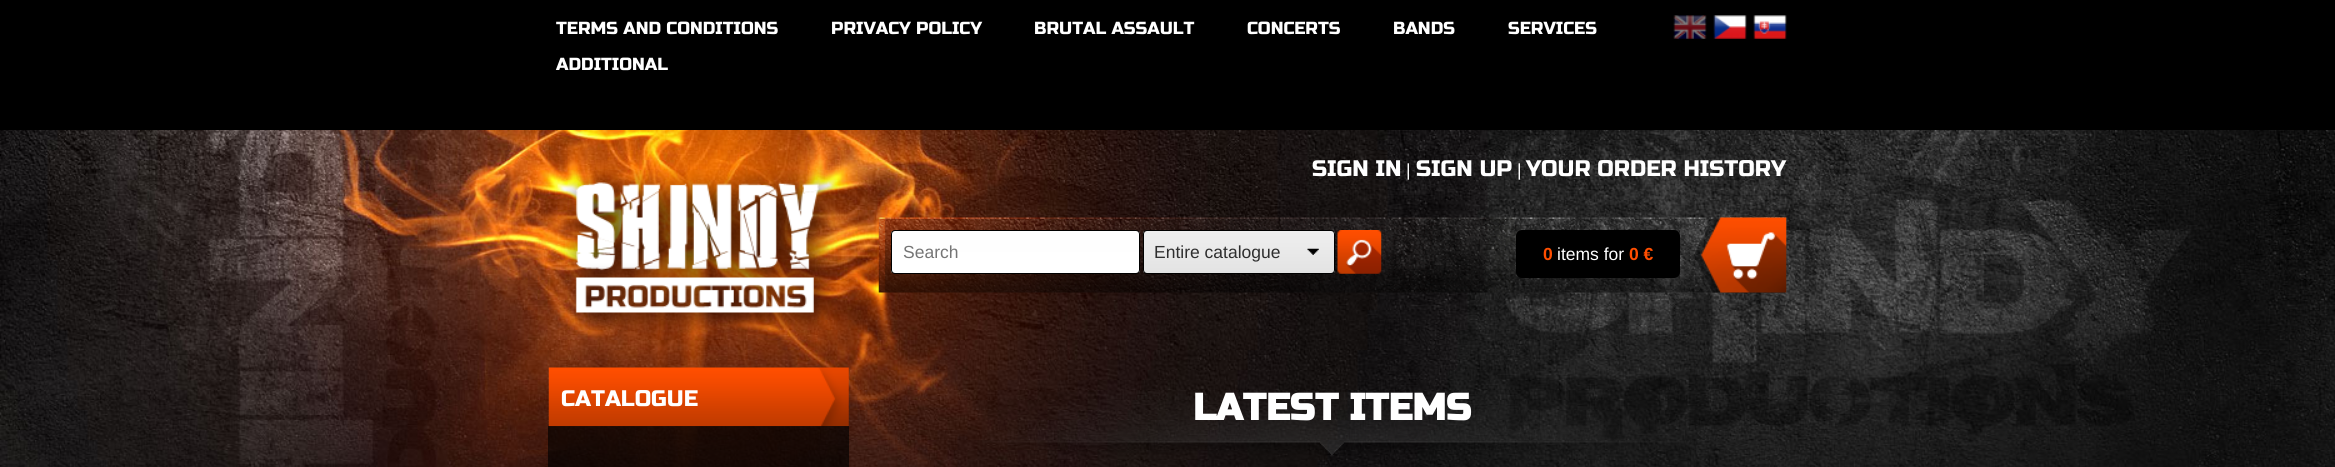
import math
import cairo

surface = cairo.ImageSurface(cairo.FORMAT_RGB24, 2335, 467)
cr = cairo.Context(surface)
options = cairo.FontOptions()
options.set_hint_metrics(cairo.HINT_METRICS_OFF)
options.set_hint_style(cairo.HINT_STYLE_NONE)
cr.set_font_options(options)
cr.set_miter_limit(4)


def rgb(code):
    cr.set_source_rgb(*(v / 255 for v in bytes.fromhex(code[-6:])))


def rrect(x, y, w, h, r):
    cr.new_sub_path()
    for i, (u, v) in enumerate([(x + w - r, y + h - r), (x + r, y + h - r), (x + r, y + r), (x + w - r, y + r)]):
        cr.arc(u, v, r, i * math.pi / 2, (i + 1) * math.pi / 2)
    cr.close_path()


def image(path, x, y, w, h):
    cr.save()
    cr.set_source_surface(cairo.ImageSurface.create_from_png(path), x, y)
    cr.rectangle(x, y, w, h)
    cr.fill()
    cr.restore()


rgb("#ffffff")
cr.paint()
image("img/1.png", 0, 130, 2335, 337)
rgb("#000000")
cr.rectangle(0, 0, 2335, 130)
cr.fill()
image("img/2.png", 1673, 15, 34, 24)
image("img/3.png", 1713, 15, 34, 24)
image("img/4.png", 1753, 15, 34, 24)
image("img/5.png", 561, 169, 279, 164)
image("img/6.png", 878, 217, 909, 76)
cr.save()
rrect(891, 230, 249, 44, 4)
cr.clip()
gradient = cairo.LinearGradient(1016, 231, 1016, 273)
gradient.add_color_stop_rgba(0, 0.996, 0.996, 0.996, 1)
gradient.add_color_stop_rgba(1, 1, 1, 1, 1)
cr.set_source(gradient)
cr.rectangle(891, 231, 249, 42)
cr.fill()
cr.restore()
rrect(891.5, 230.5, 248, 43, 3.5)
cr.set_line_width(1)
cr.stroke()
cr.save()
rrect(1143, 230, 192, 44, 4)
cr.clip()
gradient = cairo.LinearGradient(1239, 231, 1239, 273)
gradient.add_color_stop_rgba(0, 0.937, 0.937, 0.937, 1)
gradient.add_color_stop_rgba(1, 0.89, 0.89, 0.89, 1)
cr.set_source(gradient)
cr.rectangle(1143, 231, 192, 42)
cr.fill()
cr.restore()
rrect(1143.5, 230.5, 191, 43, 3.5)
cr.stroke()
image("img/7.png", 1307, 248, 12, 7)
image("img/8.png", 1337, 230, 45, 44)
rrect(1516, 230, 164, 48, 6)
cr.fill()
image("img/9.png", 1694, 217, 93, 76)
image("img/10.png", 548, 367, 301, 60)
cr.set_source_rgba(0, 0, 0, 0.66)
cr.rectangle(548, 426, 301, 41)
cr.fill()
image("img/11.png", 982, 392, 710, 63)
cr.select_font_face("Russo One")
cr.set_font_size(17.5)
rgb("#ffffff")
for x, y, s in [
    (556, 34, "TERMS AND CONDITIONS"),
    (831, 34, "PRIVACY POLICY"),
    (1034, 34, "BRUTAL ASSAULT"),
    (1247, 34, "CONCERTS"),
    (1393, 34, "BANDS"),
    (1508, 34, "SERVICES"),
    (556, 70, "ADDITIONAL"),
]:
    cr.move_to(x, y)
    cr.show_text(s)
cr.set_font_size(22.5)
cr.move_to(1312, 176)
cr.show_text("SIGN IN")
cr.select_font_face("Liberation Sans")
cr.set_font_size(17.5)
cr.move_to(1406, 176)
cr.show_text("|")
cr.select_font_face("Russo One")
cr.set_font_size(22.5)
cr.move_to(1416, 176)
cr.show_text("SIGN UP")
cr.select_font_face("Liberation Sans")
cr.set_font_size(17.5)
cr.move_to(1517, 176)
cr.show_text("|")
cr.select_font_face("Russo One")
cr.set_font_size(22.5)
cr.move_to(1526, 176)
cr.show_text("YOUR ORDER HISTORY")
cr.select_font_face("Liberation Sans")
cr.set_font_size(17.5)
rgb("#757575")
cr.move_to(903, 258)
cr.show_text("Search")
rgb("#2e2e2e")
cr.move_to(1154, 258)
cr.show_text("Entire catalogue")
cr.select_font_face("Liberation Sans", cairo.FONT_SLANT_NORMAL, cairo.FONT_WEIGHT_BOLD)
rgb("#ff4e00")
cr.move_to(1543, 260)
cr.show_text("0")
cr.select_font_face("Liberation Sans")
rgb("#ffffff")
cr.move_to(1557, 260)
cr.show_text("items for")
cr.select_font_face("Liberation Sans", cairo.FONT_SLANT_NORMAL, cairo.FONT_WEIGHT_BOLD)
rgb("#ff4e00")
cr.move_to(1629, 260)
cr.show_text("0 €")
cr.select_font_face("Russo One")
cr.set_font_size(22.5)
rgb("#ffffff")
cr.move_to(561, 406)
cr.show_text("CATALOGUE")
cr.select_font_face("Russo One", cairo.FONT_SLANT_NORMAL, cairo.FONT_WEIGHT_BOLD)
cr.set_font_size(37.5)
cr.move_to(1193, 420)
cr.show_text("LATEST ITEMS")
surface.write_to_png("page.png")
